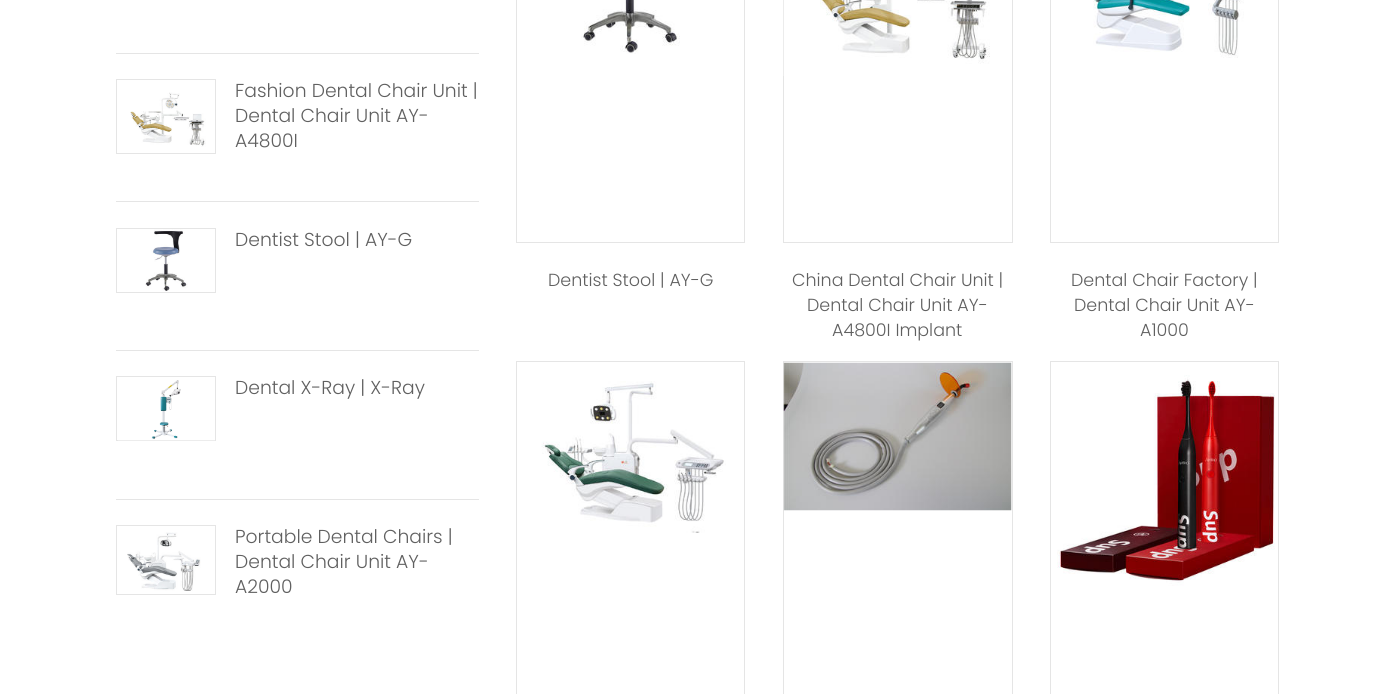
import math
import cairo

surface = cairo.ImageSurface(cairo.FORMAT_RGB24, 1395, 694)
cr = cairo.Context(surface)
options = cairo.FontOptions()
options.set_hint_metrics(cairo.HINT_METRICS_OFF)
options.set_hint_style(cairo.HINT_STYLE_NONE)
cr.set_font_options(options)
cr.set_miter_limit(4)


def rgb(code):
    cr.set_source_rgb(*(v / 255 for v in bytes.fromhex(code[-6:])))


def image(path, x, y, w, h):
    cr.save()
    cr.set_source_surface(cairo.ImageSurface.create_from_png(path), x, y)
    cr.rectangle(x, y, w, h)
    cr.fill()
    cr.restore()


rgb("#ffffff")
cr.paint()
rgb("#e5e5e5")
cr.rectangle(116, 53, 363, 1)
cr.fill()
cr.rectangle(116, 201, 363, 1)
cr.fill()
cr.rectangle(116.5, 79.5, 99, 74)
cr.set_line_width(1)
cr.stroke()
image("img/1.png", 130, 92, 76, 55)
cr.rectangle(116, 350, 363, 1)
cr.fill()
cr.rectangle(116.5, 228.5, 99, 64)
cr.stroke()
image("img/2.png", 145, 229, 43, 62)
cr.rectangle(116, 499, 363, 1)
cr.fill()
cr.rectangle(116.5, 376.5, 99, 64)
cr.stroke()
image("img/3.png", 118, 380, 97, 61)
cr.rectangle(116.5, 525.5, 99, 69)
cr.stroke()
image("img/4.png", 127, 532, 74, 59)
cr.rectangle(516.5, -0.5, 228, 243)
cr.stroke()
image("img/5.png", 581, 0, 99, 54)
cr.rectangle(783.5, -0.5, 229, 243)
cr.stroke()
image("img/6.png", 783, 0, 207, 76)
cr.rectangle(1050.5, -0.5, 228, 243)
cr.stroke()
image("img/7.png", 1093, 0, 151, 58)
cr.rectangle(516.5, 361.5, 228, 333)
cr.stroke()
image("img/8.png", 541, 381, 185, 152)
cr.rectangle(783.5, 361.5, 229, 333)
cr.stroke()
image("img/9.png", 783, 362, 229, 149)
cr.rectangle(1050.5, 361.5, 228, 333)
cr.stroke()
image("img/10.png", 1057, 375, 218, 211)
cr.select_font_face("Poppins Light")
cr.set_font_size(18.75)
rgb("#606060")
for x, y, s in [
    (235, 97, "Fashion Dental Chair Unit |"),
    (235, 122, "Dental Chair Unit AY-"),
    (235, 147, "A4800I"),
    (235, 246, "Dentist Stool | AY-G"),
    (235, 394, "Dental X-Ray | X-Ray"),
    (235, 543, "Portable Dental Chairs |"),
    (235, 568, "Dental Chair Unit AY-"),
    (235, 593, "A2000"),
]:
    cr.move_to(x, y)
    cr.show_text(s)
cr.set_font_size(17.5)
for x, y, s in [
    (548, 286, "Dentist Stool | AY-G"),
    (792, 286, "China Dental Chair Unit |"),
    (807, 311, "Dental Chair Unit AY-"),
    (832, 336, "A4800I Implant"),
    (1071, 286, "Dental Chair Factory |"),
    (1074, 311, "Dental Chair Unit AY-"),
    (1140, 336, "A1000"),
]:
    cr.move_to(x, y)
    cr.show_text(s)
surface.write_to_png("page.png")
